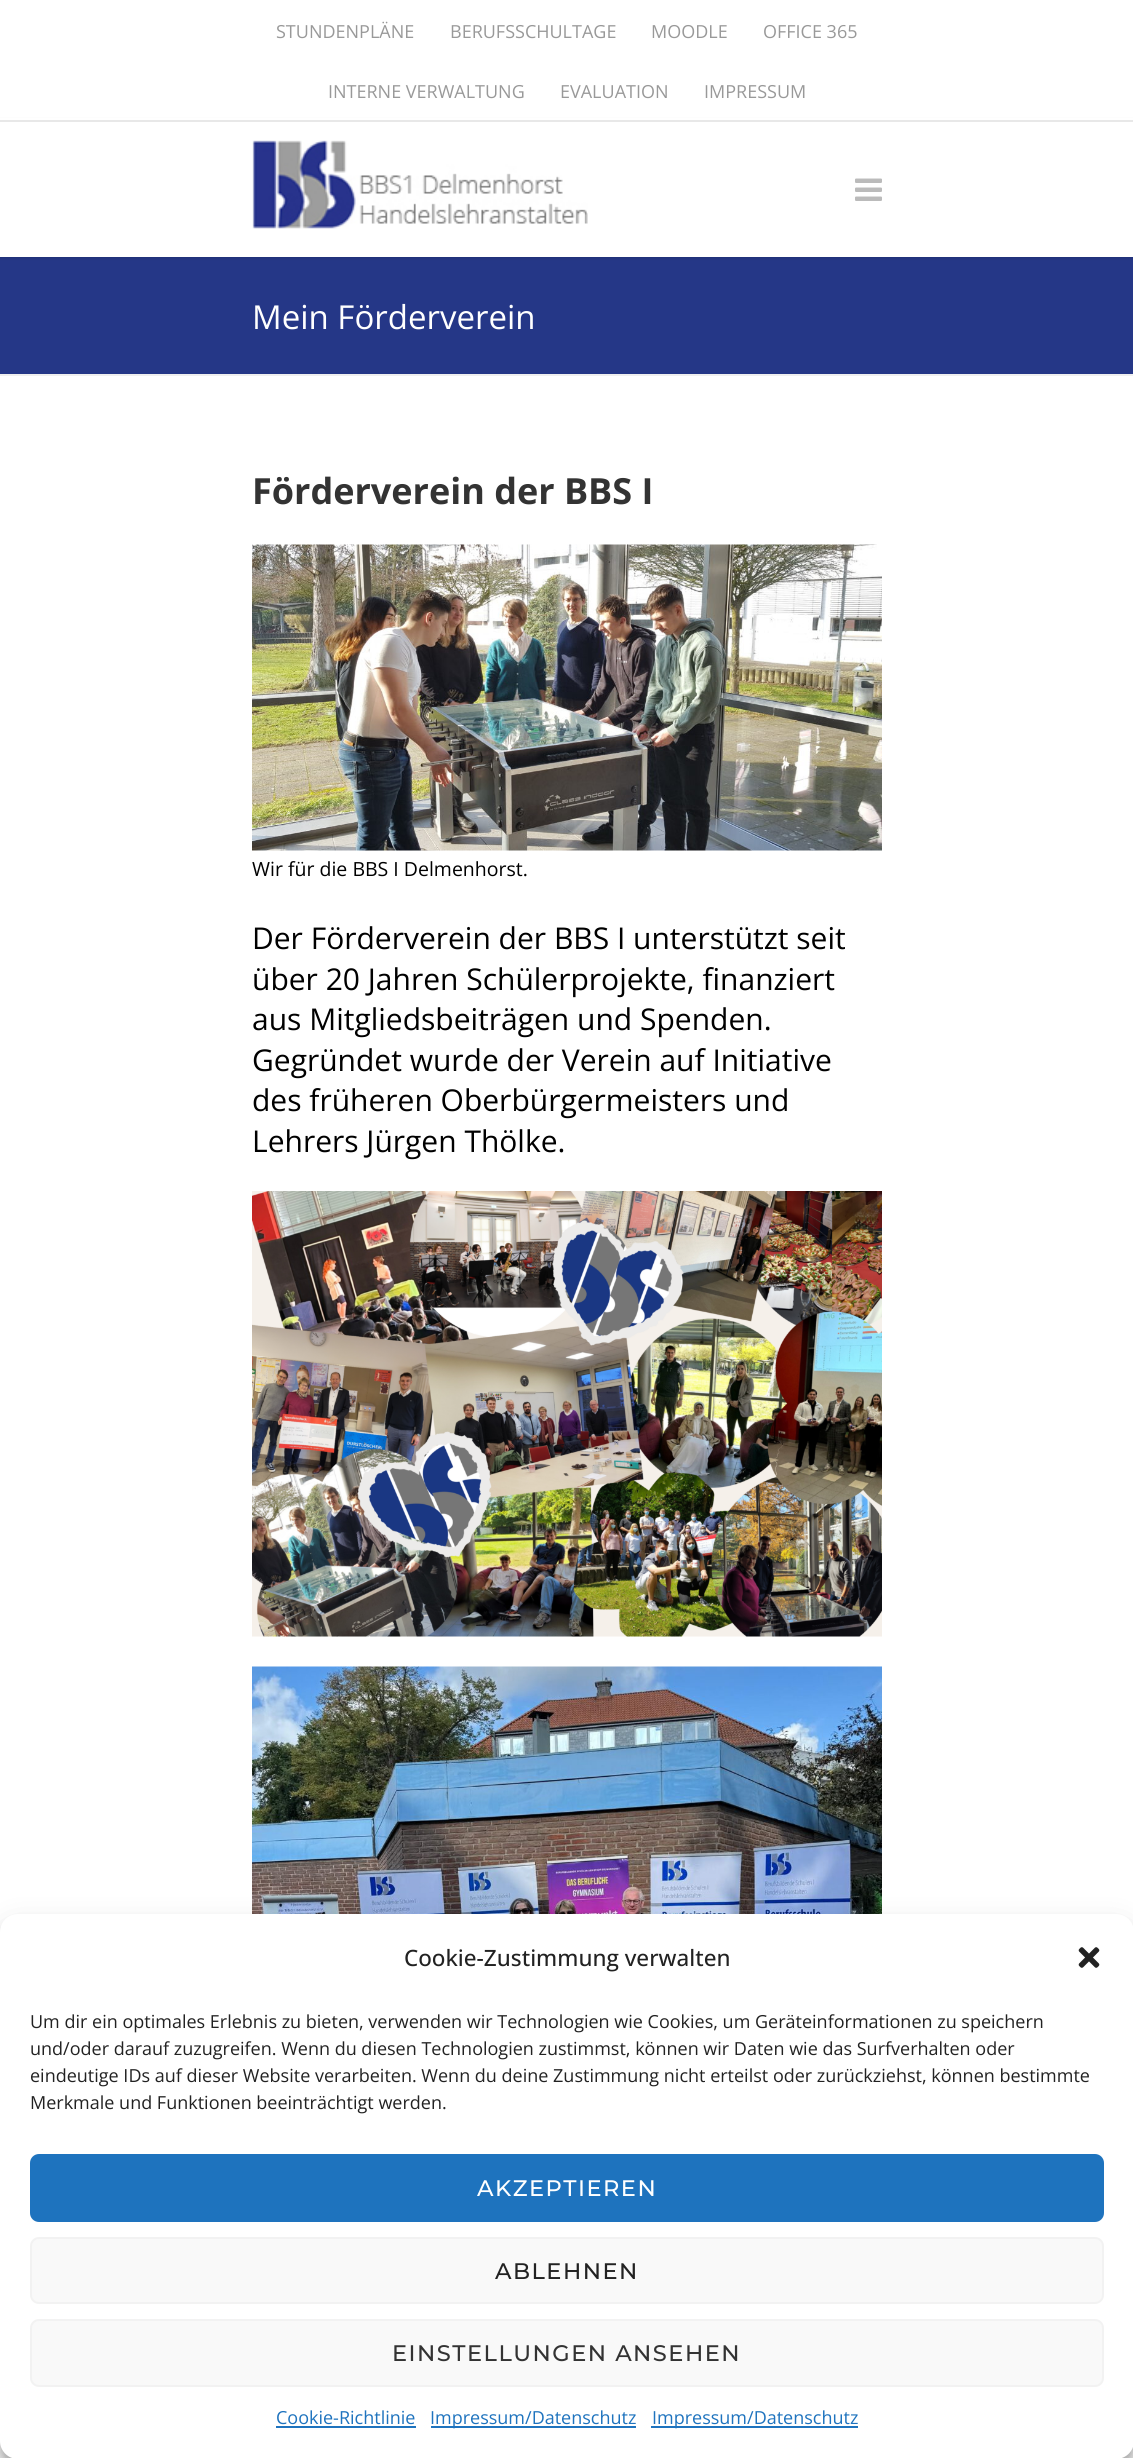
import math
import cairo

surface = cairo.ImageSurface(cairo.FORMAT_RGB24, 1133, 2458)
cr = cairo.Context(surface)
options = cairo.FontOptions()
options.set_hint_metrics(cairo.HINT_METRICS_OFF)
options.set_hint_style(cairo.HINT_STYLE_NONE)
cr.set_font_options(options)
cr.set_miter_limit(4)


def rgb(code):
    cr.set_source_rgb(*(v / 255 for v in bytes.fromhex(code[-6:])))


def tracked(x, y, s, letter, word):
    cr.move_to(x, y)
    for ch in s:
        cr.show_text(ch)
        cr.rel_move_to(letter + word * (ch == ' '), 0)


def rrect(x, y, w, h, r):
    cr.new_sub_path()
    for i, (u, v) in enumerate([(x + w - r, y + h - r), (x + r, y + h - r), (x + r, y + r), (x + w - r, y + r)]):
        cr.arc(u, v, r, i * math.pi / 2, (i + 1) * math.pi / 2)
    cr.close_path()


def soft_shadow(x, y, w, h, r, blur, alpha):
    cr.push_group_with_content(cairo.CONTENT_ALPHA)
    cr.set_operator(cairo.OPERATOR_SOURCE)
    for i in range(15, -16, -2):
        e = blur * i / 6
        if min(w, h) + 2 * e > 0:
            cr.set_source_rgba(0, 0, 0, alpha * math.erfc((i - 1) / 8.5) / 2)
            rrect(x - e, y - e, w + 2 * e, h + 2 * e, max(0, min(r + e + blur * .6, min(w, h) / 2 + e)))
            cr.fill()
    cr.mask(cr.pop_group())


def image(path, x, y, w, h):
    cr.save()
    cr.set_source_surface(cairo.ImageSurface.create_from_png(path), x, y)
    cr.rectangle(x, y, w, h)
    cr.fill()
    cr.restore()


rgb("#ffffff")
cr.paint()
rgb("#253787")
cr.rectangle(0, 257, 1133, 117)
cr.fill()
rgb("#000000")
soft_shadow(-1, 120, 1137, 138, 0, 1.5, 0.16)
for x, y, w, h, color in [
    (0, 118, 1133, 2, "#ffffff"),
    (0, 120, 1133, 2, "#e8e8e8"),
    (0, 122, 1133, 135, "#ffffff"),
]:
    rgb(color)
    cr.rectangle(x, y, w, h)
    cr.fill()
image("img/1.png", 252, 140, 336, 89)
image("img/2.png", 855, 178, 27, 23)
rgb("#efefef")
cr.rectangle(0, 374, 1133, 2)
cr.fill()
image("img/3.png", 252, 544, 630, 307)
image("img/4.png", 252, 1191, 630, 446)
image("img/5.png", 252, 1666, 630, 248)
rgb("#000000")
soft_shadow(0, 1923, 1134, 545, 18, 4.5, 0.23)
soft_shadow(0, 1929, 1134, 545, 18, 15, 0.19)
rgb("#ffffff")
rrect(0, 1914, 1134, 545, 18)
cr.fill()
image("img/6.png", 1078, 1947, 22, 21)
rgb("#1e73be")
rrect(31, 2155, 1072, 66, 8)
cr.fill_preserve()
cr.stroke()
rgb("#f9f9f9")
rrect(31, 2238, 1072, 65, 8)
cr.fill_preserve()
rgb("#f2f2f2")
cr.stroke()
rgb("#f9f9f9")
rrect(31, 2320, 1072, 66, 8)
cr.fill_preserve()
rgb("#f2f2f2")
cr.stroke()
for x, y, w, h, color in [
    (276, 2426, 140, 2, "#1e73be"),
    (431, 2426, 205, 2, "#1e73be"),
    (651, 2426, 207, 2, "#1e73be"),
]:
    rgb(color)
    cr.rectangle(x, y, w, h)
    cr.fill()
cr.select_font_face("Open Sans")
cr.set_font_size(18)
rgb("#999999")
for x, y, s in [
    (276, 38, "STUNDENPLÄNE"),
    (450, 38, "BERUFSSCHULTAGE"),
    (651, 38, "MOODLE"),
    (763, 38, "OFFICE 365"),
    (328, 98, "INTERNE VERWALTUNG"),
    (560, 98, "EVALUATION"),
    (704, 98, "IMPRESSUM"),
]:
    cr.move_to(x, y)
    cr.show_text(s)
cr.set_font_size(33)
rgb("#ffffff")
cr.move_to(252, 329)
cr.show_text("Mein Förderverein")
cr.select_font_face("Open Sans", cairo.FONT_SLANT_NORMAL, cairo.FONT_WEIGHT_BOLD)
cr.set_font_size(36)
rgb("#333333")
cr.move_to(252, 504)
cr.show_text("Förderverein der BBS I")
cr.select_font_face("Open Sans")
cr.set_font_size(19.5)
rgb("#000000")
cr.move_to(252, 876)
cr.show_text("Wir für die BBS I Delmenhorst.")
cr.set_font_size(30)
for x, y, s in [
    (252, 949, "Der Förderverein der BBS I unterstützt seit"),
    (252, 990, "über 20 Jahren Schülerprojekte, finanziert"),
    (252, 1030, "aus Mitgliedsbeiträgen und Spenden."),
    (252, 1071, "Gegründet wurde der Verein auf Initiative"),
    (252, 1111, "des früheren Oberbürgermeisters und"),
    (252, 1152, "Lehrers Jürgen Thölke."),
]:
    cr.move_to(x, y)
    cr.show_text(s)
cr.select_font_face("Open Sans Medium")
cr.set_font_size(22.5)
rgb("#222222")
cr.move_to(404, 1966)
cr.show_text("Cookie-Zustimmung verwalten")
cr.select_font_face("Open Sans")
cr.set_font_size(18)
for x, y, s in [
    (30, 2028, "Um dir ein optimales Erlebnis zu bieten, verwenden wir Technologien wie Cookies, um Geräteinformationen zu speichern"),
    (30, 2055, "und/oder darauf zuzugreifen. Wenn du diesen Technologien zustimmst, können wir Daten wie das Surfverhalten oder"),
    (30, 2082, "eindeutige IDs auf dieser Website verarbeiten. Wenn du deine Zustimmung nicht erteilst oder zurückziehst, können bestimmte"),
    (30, 2109, "Merkmale und Funktionen beeinträchtigt werden."),
]:
    cr.move_to(x, y)
    cr.show_text(s)
cr.select_font_face("Montserrat Medium")
cr.set_font_size(22.5)
rgb("#ffffff")
tracked(477, 2196, "AKZEPTIEREN", 1.5, 0)
rgb("#222222")
tracked(495, 2279, "ABLEHNEN", 1.5, 0)
rgb("#333333")
tracked(392, 2361, "EINSTELLUNGEN ANSEHEN", 1.5, 0)
cr.select_font_face("Open Sans")
cr.set_font_size(18)
rgb("#1e73be")
for x, y, s in [
    (276, 2424, "Cookie-Richtlinie"),
    (430, 2424, "Impressum/Datenschutz"),
    (652, 2424, "Impressum/Datenschutz"),
]:
    cr.move_to(x, y)
    cr.show_text(s)
surface.write_to_png("page.png")
